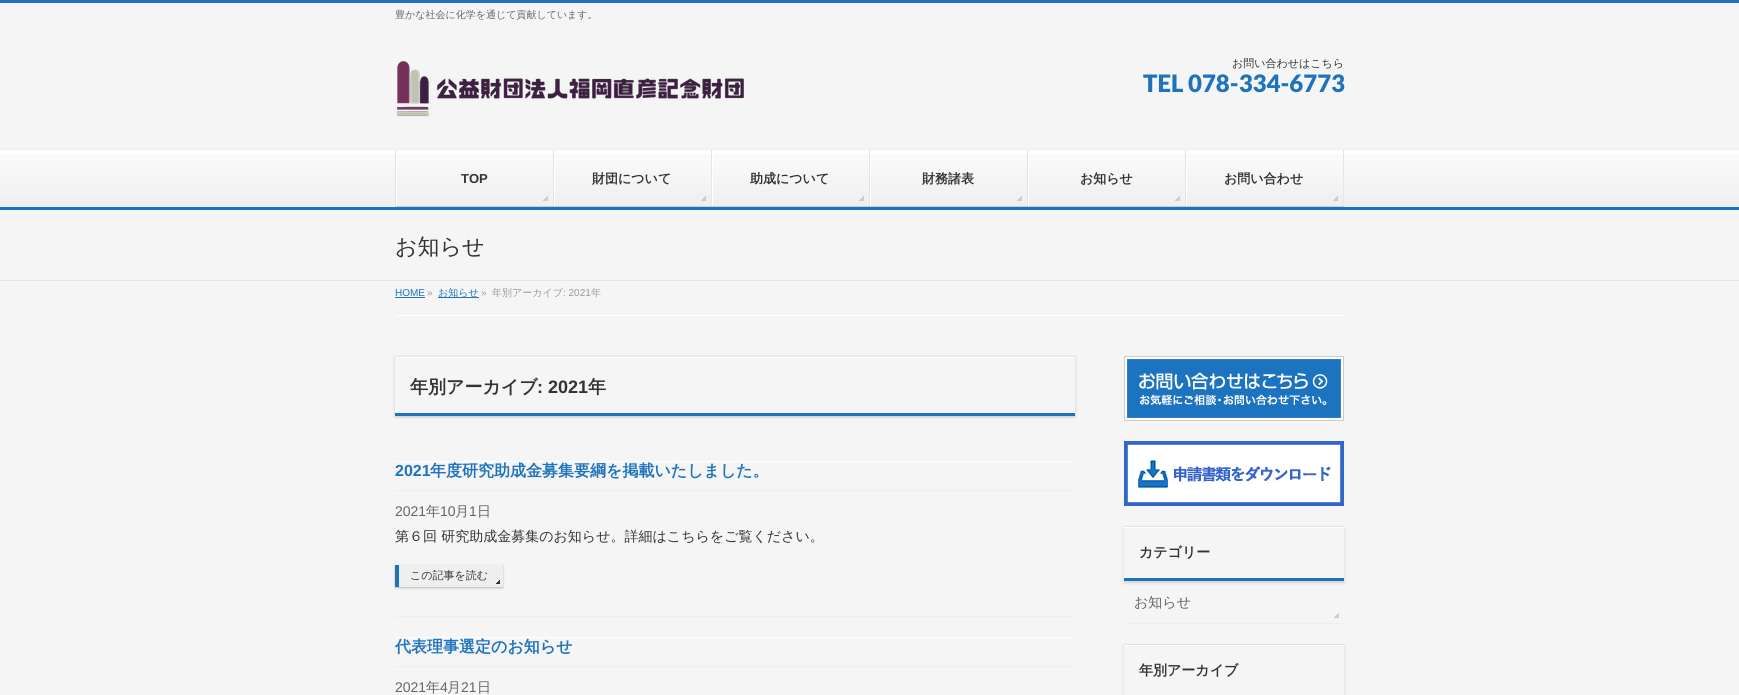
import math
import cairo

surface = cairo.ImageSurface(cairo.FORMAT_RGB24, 1739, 695)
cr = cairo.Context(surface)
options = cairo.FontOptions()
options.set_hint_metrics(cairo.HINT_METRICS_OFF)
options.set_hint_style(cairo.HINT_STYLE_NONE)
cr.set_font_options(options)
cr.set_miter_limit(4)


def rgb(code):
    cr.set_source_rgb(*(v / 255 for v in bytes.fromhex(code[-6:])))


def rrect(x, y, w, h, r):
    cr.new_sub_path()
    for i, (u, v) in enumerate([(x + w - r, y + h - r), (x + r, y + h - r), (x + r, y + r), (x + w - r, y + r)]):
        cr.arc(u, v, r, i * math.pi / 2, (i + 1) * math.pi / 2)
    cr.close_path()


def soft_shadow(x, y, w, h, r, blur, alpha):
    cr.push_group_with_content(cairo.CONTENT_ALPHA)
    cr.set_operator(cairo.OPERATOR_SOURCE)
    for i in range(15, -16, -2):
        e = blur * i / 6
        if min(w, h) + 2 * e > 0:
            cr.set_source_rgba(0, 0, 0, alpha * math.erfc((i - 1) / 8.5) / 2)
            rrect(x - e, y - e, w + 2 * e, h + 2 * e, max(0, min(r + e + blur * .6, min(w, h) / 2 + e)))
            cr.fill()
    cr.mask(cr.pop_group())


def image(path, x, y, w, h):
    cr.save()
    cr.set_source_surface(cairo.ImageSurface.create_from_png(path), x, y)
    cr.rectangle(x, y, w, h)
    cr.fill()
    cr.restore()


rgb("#f5f5f5")
cr.paint()
rgb("#1e73be")
cr.rectangle(0, 0, 1739, 3)
cr.fill()
image("img/1.png", 397, 61, 347, 56)
rgb("#ffffff")
cr.rectangle(0, 150, 1739, 4)
cr.fill()
image("img/2.png", 0, 154, 1739, 53)
for x, y, w, h, color in [
    (0, 149, 1739, 1, "#eeeeee"),
    (0, 207, 1739, 3, "#1e73be"),
    (395, 150, 1, 57, "#e5e5e5"),
    (396, 150, 1, 57, "#ffffff"),
]:
    rgb(color)
    cr.rectangle(x, y, w, h)
    cr.fill()
image("img/3.png", 543, 196, 5, 5)
for x, y, w, h, color in [
    (553, 150, 1, 57, "#e5e5e5"),
    (396, 206, 158, 1, "#cccccc"),
    (554, 150, 1, 57, "#ffffff"),
]:
    rgb(color)
    cr.rectangle(x, y, w, h)
    cr.fill()
image("img/3.png", 701, 196, 5, 5)
for x, y, w, h, color in [
    (711, 150, 1, 57, "#e5e5e5"),
    (554, 206, 158, 1, "#cccccc"),
    (712, 150, 1, 57, "#ffffff"),
]:
    rgb(color)
    cr.rectangle(x, y, w, h)
    cr.fill()
image("img/3.png", 859, 196, 5, 5)
for x, y, w, h, color in [
    (869, 150, 1, 57, "#e5e5e5"),
    (712, 206, 158, 1, "#cccccc"),
    (870, 150, 1, 57, "#ffffff"),
]:
    rgb(color)
    cr.rectangle(x, y, w, h)
    cr.fill()
image("img/3.png", 1017, 196, 5, 5)
for x, y, w, h, color in [
    (1027, 150, 1, 57, "#e5e5e5"),
    (870, 206, 158, 1, "#cccccc"),
    (1028, 150, 1, 57, "#ffffff"),
]:
    rgb(color)
    cr.rectangle(x, y, w, h)
    cr.fill()
image("img/3.png", 1175, 196, 5, 5)
for x, y, w, h, color in [
    (1185, 150, 1, 57, "#e5e5e5"),
    (1028, 206, 158, 1, "#cccccc"),
    (1186, 150, 1, 57, "#ffffff"),
]:
    rgb(color)
    cr.rectangle(x, y, w, h)
    cr.fill()
image("img/3.png", 1333, 196, 5, 5)
for x, y, w, h, color in [
    (1343, 150, 1, 57, "#e5e5e5"),
    (1186, 206, 158, 1, "#cccccc"),
    (0, 280, 1739, 1, "#e5e5e5"),
    (395, 315, 950, 1, "#ffffff"),
    (395, 297, 30, 1, "#1e73be"),
    (438, 297, 41, 1, "#1e73be"),
]:
    rgb(color)
    cr.rectangle(x, y, w, h)
    cr.fill()
cr.save()
cr.set_fill_rule(cairo.FILL_RULE_EVEN_ODD)
cr.new_path()
cr.move_to(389, 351)
cr.line_to(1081, 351)
cr.line_to(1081, 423)
cr.line_to(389, 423)
cr.close_path()
cr.move_to(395, 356)
cr.line_to(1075, 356)
cr.line_to(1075, 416)
cr.line_to(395, 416)
cr.close_path()
cr.clip()
rgb("#000000")
soft_shadow(395, 357, 680, 60, 0, 1.5, 0.2)
cr.restore()
for x, y, w, h, color in [
    (395, 357, 680, 1, "#ffffff"),
    (395, 356, 680, 1, "#e5e5e5"),
    (395, 413, 680, 3, "#1e73be"),
    (395, 616, 680, 1, "#eeeeee"),
    (395, 461, 680, 1, "#ffffff"),
    (395, 490, 680, 1, "#eeeeee"),
]:
    rgb(color)
    cr.rectangle(x, y, w, h)
    cr.fill()
rgb("#000000")
soft_shadow(395, 566, 108, 22, 0, 1, 0.25)
rgb("#efefef")
cr.rectangle(399, 565, 104, 22)
cr.fill()
image("img/4.png", 496, 580, 4, 4)
for x, y, w, h, color in [
    (395, 565, 4, 22, "#1e73be"),
    (395, 637, 680, 1, "#ffffff"),
    (395, 666, 680, 1, "#eeeeee"),
]:
    rgb(color)
    cr.rectangle(x, y, w, h)
    cr.fill()
image("img/5.png", 1124, 356, 220, 65)
image("img/6.png", 1124, 441, 220, 65)
cr.save()
cr.set_fill_rule(cairo.FILL_RULE_EVEN_ODD)
cr.new_path()
cr.move_to(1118, 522)
cr.line_to(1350, 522)
cr.line_to(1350, 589)
cr.line_to(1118, 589)
cr.close_path()
cr.move_to(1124, 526)
cr.line_to(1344, 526)
cr.line_to(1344, 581)
cr.line_to(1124, 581)
cr.close_path()
cr.clip()
rgb("#000000")
soft_shadow(1124, 528, 220, 55, 0, 1.5, 0.15)
cr.restore()
for x, y, w, h, color in [
    (1124, 527, 220, 1, "#ffffff"),
    (1124, 526, 220, 1, "#e5e5e5"),
    (1124, 578, 220, 3, "#1e73be"),
    (1124, 623, 220, 1, "#eeeeee"),
]:
    rgb(color)
    cr.rectangle(x, y, w, h)
    cr.fill()
image("img/7.png", 1334, 613, 5, 5)
cr.save()
cr.set_fill_rule(cairo.FILL_RULE_EVEN_ODD)
cr.new_path()
cr.move_to(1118, 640)
cr.line_to(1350, 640)
cr.line_to(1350, 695)
cr.line_to(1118, 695)
cr.close_path()
cr.move_to(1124, 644)
cr.line_to(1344, 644)
cr.line_to(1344, 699)
cr.line_to(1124, 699)
cr.close_path()
cr.clip()
rgb("#000000")
soft_shadow(1124, 646, 220, 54, 0, 1.5, 0.15)
cr.restore()
rgb("#ffffff")
cr.rectangle(1124, 645, 220, 1)
cr.fill()
rgb("#e5e5e5")
cr.rectangle(1124, 644, 220, 1)
cr.fill()
cr.select_font_face("WenQuanYi Zen Hei Medium")
cr.set_font_size(10)
rgb("#666666")
cr.move_to(395, 18)
cr.show_text("豊かな社会に化学を通じて貢献しています。")
cr.set_font_size(11)
rgb("#333333")
cr.move_to(1232, 67)
cr.show_text("お問い合わせはこちら")
cr.select_font_face("Lato Black")
cr.set_font_size(24)
rgb("#1e73be")
cr.move_to(1143, 92)
cr.show_text("TEL 078-334-6773")
cr.select_font_face("Liberation Sans", cairo.FONT_SLANT_NORMAL, cairo.FONT_WEIGHT_BOLD)
cr.set_font_size(13)
rgb("#333333")
cr.move_to(461, 183)
cr.show_text("TOP")
cr.select_font_face("WenQuanYi Zen Hei", cairo.FONT_SLANT_NORMAL, cairo.FONT_WEIGHT_BOLD)
for x, y, s in [
    (592, 183, "財団について"),
    (750, 183, "助成について"),
    (922, 183, "財務諸表"),
    (1080, 183, "お知らせ"),
    (1224, 183, "お問い合わせ"),
]:
    cr.move_to(x, y)
    cr.show_text(s)
cr.select_font_face("WenQuanYi Zen Hei Medium")
cr.set_font_size(22)
cr.move_to(395, 254)
cr.show_text("お知らせ")
cr.select_font_face("Liberation Sans")
cr.set_font_size(10)
rgb("#1e73be")
cr.move_to(395, 296)
cr.show_text("HOME")
rgb("#999999")
cr.move_to(427, 296)
cr.show_text("»")
cr.select_font_face("WenQuanYi Zen Hei Medium")
rgb("#1e73be")
cr.move_to(438, 296)
cr.show_text("お知らせ")
cr.select_font_face("Liberation Sans")
rgb("#999999")
cr.move_to(481, 296)
cr.show_text("»")
cr.select_font_face("WenQuanYi Zen Hei Medium")
cr.move_to(492, 296)
cr.show_text("年別アーカイブ")
cr.select_font_face("Liberation Sans")
cr.move_to(563, 296)
cr.show_text(": 2021")
cr.select_font_face("WenQuanYi Zen Hei Medium")
cr.move_to(591, 296)
cr.show_text("年")
cr.select_font_face("WenQuanYi Zen Hei", cairo.FONT_SLANT_NORMAL, cairo.FONT_WEIGHT_BOLD)
cr.set_font_size(18)
rgb("#333333")
cr.move_to(410, 393)
cr.show_text("年別アーカイブ")
cr.select_font_face("Liberation Sans", cairo.FONT_SLANT_NORMAL, cairo.FONT_WEIGHT_BOLD)
cr.move_to(537, 393)
cr.show_text(": 2021")
cr.select_font_face("WenQuanYi Zen Hei", cairo.FONT_SLANT_NORMAL, cairo.FONT_WEIGHT_BOLD)
cr.move_to(588, 393)
cr.show_text("年")
cr.select_font_face("Liberation Sans", cairo.FONT_SLANT_NORMAL, cairo.FONT_WEIGHT_BOLD)
cr.set_font_size(16)
rgb("#1e73be")
cr.move_to(395, 476)
cr.show_text("2021")
cr.select_font_face("WenQuanYi Zen Hei", cairo.FONT_SLANT_NORMAL, cairo.FONT_WEIGHT_BOLD)
cr.move_to(430, 476)
cr.show_text("年度研究助成金募集要綱を掲載いたしました。")
cr.select_font_face("Liberation Sans")
cr.set_font_size(14)
rgb("#666666")
cr.move_to(395, 516)
cr.show_text("2021")
cr.select_font_face("WenQuanYi Zen Hei Medium")
cr.move_to(426, 516)
cr.show_text("年")
cr.select_font_face("Liberation Sans")
cr.move_to(440, 516)
cr.show_text("10")
cr.select_font_face("WenQuanYi Zen Hei Medium")
cr.move_to(455, 516)
cr.show_text("月")
cr.select_font_face("Liberation Sans")
cr.move_to(469, 516)
cr.show_text("1")
cr.select_font_face("WenQuanYi Zen Hei Medium")
cr.move_to(477, 516)
cr.show_text("日")
rgb("#333333")
cr.move_to(395, 541)
cr.show_text("第６回 研究助成金募集のお知らせ。詳細はこちらをご覧ください。")
cr.set_font_size(11)
cr.move_to(410, 579)
cr.show_text("この記事を読む")
cr.select_font_face("WenQuanYi Zen Hei", cairo.FONT_SLANT_NORMAL, cairo.FONT_WEIGHT_BOLD)
cr.set_font_size(16)
rgb("#1e73be")
cr.move_to(395, 652)
cr.show_text("代表理事選定のお知らせ")
cr.select_font_face("Liberation Sans")
cr.set_font_size(14)
rgb("#666666")
cr.move_to(395, 692)
cr.show_text("2021")
cr.select_font_face("WenQuanYi Zen Hei Medium")
cr.move_to(426, 692)
cr.show_text("年")
cr.select_font_face("Liberation Sans")
cr.move_to(440, 692)
cr.show_text("4")
cr.select_font_face("WenQuanYi Zen Hei Medium")
cr.move_to(447, 692)
cr.show_text("月")
cr.select_font_face("Liberation Sans")
cr.move_to(461, 692)
cr.show_text("21")
cr.select_font_face("WenQuanYi Zen Hei Medium")
cr.move_to(477, 692)
cr.show_text("日")
cr.select_font_face("WenQuanYi Zen Hei", cairo.FONT_SLANT_NORMAL, cairo.FONT_WEIGHT_BOLD)
rgb("#333333")
cr.move_to(1139, 557)
cr.show_text("カテゴリー")
cr.select_font_face("WenQuanYi Zen Hei Medium")
rgb("#666666")
cr.move_to(1134, 607)
cr.show_text("お知らせ")
cr.select_font_face("WenQuanYi Zen Hei", cairo.FONT_SLANT_NORMAL, cairo.FONT_WEIGHT_BOLD)
rgb("#333333")
cr.move_to(1139, 675)
cr.show_text("年別アーカイブ")
surface.write_to_png("page.png")
